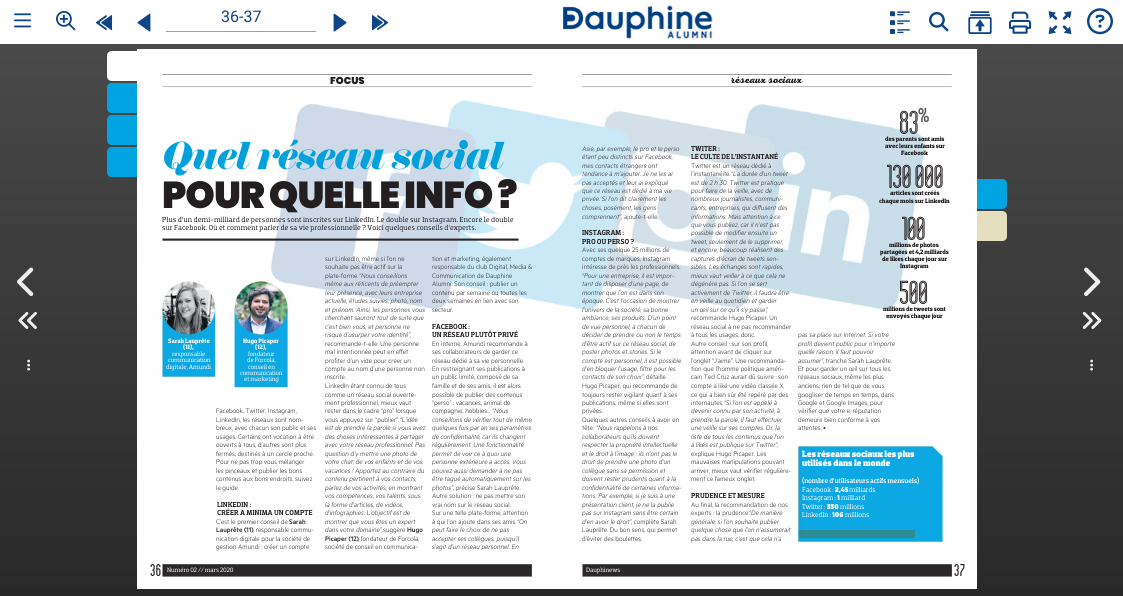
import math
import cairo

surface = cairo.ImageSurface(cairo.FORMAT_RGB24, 1123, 596)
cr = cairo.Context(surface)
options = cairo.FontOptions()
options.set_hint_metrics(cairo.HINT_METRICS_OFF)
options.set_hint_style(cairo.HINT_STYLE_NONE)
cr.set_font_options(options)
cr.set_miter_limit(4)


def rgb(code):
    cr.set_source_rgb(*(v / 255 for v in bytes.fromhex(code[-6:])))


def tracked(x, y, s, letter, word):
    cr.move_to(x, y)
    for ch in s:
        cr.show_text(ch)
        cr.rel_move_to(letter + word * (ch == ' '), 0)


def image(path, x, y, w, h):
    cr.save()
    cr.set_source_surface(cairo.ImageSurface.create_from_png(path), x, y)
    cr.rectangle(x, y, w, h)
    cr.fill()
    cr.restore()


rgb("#ffffff")
cr.paint()
gradient = cairo.LinearGradient(562, 0, 562, 596)
gradient.add_color_stop_rgba(0, 0.298, 0.298, 0.298, 1)
gradient.add_color_stop_rgba(1, 0.161, 0.161, 0.161, 1)
cr.set_source(gradient)
cr.rectangle(0, 44, 1123, 552)
cr.fill()
image("img/1.png", 14, 13, 17, 15)
image("img/2.png", 56, 10, 20, 21)
image("img/3.png", 95, 15, 18, 16)
image("img/4.png", 137, 13, 14, 19)
rgb("#9e9e9e")
cr.rectangle(166, 31, 150, 1)
cr.fill()
image("img/5.png", 333, 13, 14, 19)
image("img/6.png", 371, 15, 18, 16)
image("img/7.png", 563, 5, 150, 34)
image("img/8.png", 889, 11, 21, 23)
image("img/9.png", 929, 11, 20, 21)
image("img/10.png", 968, 11, 24, 23)
image("img/11.png", 1009, 11, 23, 23)
image("img/12.png", 1048, 11, 24, 23)
image("img/13.png", 1087, 8, 26, 27)
rgb("#ffffff")
cr.new_path()
cr.move_to(112, 51)
cr.line_to(137, 51)
cr.line_to(137, 81)
cr.line_to(112, 81)
cr.curve_to(109, 81, 107, 79, 107, 76)
cr.line_to(107, 56)
cr.curve_to(107, 53, 109, 51, 112, 51)
cr.close_path()
cr.fill()
rgb("#00a4e1")
cr.new_path()
cr.move_to(112, 83)
cr.line_to(137, 83)
cr.line_to(137, 113)
cr.line_to(112, 113)
cr.curve_to(109, 113, 107, 111, 107, 108)
cr.line_to(107, 88)
cr.curve_to(107, 85, 109, 83, 112, 83)
cr.close_path()
cr.fill()
cr.new_path()
cr.move_to(112, 115)
cr.line_to(137, 115)
cr.line_to(137, 145)
cr.line_to(112, 145)
cr.curve_to(109, 145, 107, 143, 107, 140)
cr.line_to(107, 120)
cr.curve_to(107, 117, 109, 115, 112, 115)
cr.close_path()
cr.fill()
cr.new_path()
cr.move_to(112, 147)
cr.line_to(137, 147)
cr.line_to(137, 177)
cr.line_to(112, 177)
cr.curve_to(109, 177, 107, 175, 107, 172)
cr.line_to(107, 152)
cr.curve_to(107, 149, 109, 147, 112, 147)
cr.close_path()
cr.fill()
rgb("#ffffff")
cr.rectangle(137, 49, 840, 540)
cr.fill()
image("img/14.png", 137, 74, 420, 503)
image("img/15.png", 158, 74, 399, 503)
image("img/16.png", 576, 74, 377, 503)
image("img/17.png", 557, 74, 396, 503)
cr.set_source_rgba(0.384, 0.384, 0.129, 0.4)
cr.rectangle(799, 530, 116, 8)
cr.fill()
rgb("#00a4e1")
cr.new_path()
cr.move_to(977, 179)
cr.line_to(1002, 179)
cr.curve_to(1005, 179, 1007, 181, 1007, 184)
cr.line_to(1007, 204)
cr.curve_to(1007, 207, 1005, 209, 1002, 209)
cr.line_to(977, 209)
cr.close_path()
cr.fill()
rgb("#e4dfbc")
cr.new_path()
cr.move_to(977, 211)
cr.line_to(1002, 211)
cr.curve_to(1005, 211, 1007, 213, 1007, 216)
cr.line_to(1007, 236)
cr.curve_to(1007, 239, 1005, 241, 1002, 241)
cr.line_to(977, 241)
cr.close_path()
cr.fill()
image("img/18.png", 17, 267, 17, 29)
image("img/19.png", 18, 311, 19, 18)
image("img/20.png", 27, 359, 3, 12)
image("img/21.png", 1084, 267, 17, 29)
image("img/22.png", 1082, 311, 20, 18)
image("img/20.png", 1090, 359, 3, 12)
cr.select_font_face("Roboto")
cr.set_font_size(16)
rgb("#0e4587")
cr.move_to(221, 22)
cr.show_text("36-37")
cr.select_font_face("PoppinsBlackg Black")
cr.set_font_size(10)
rgb("#231f20")
cr.move_to(330, 84)
cr.show_text("FOCUS")
cr.select_font_face("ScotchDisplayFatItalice")
cr.set_font_size(38.75)
rgb("#03a1db")
tracked(162, 169, "Quel réseau social", -1.1, 0)
cr.select_font_face("PoppinsBlackg Black")
cr.set_font_size(37.5)
rgb("#231f20")
tracked(162, 208, "POUR QUELLE INFO ?", -1, -0.5)
cr.select_font_face("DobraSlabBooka")
cr.set_font_size(7.4)
tracked(162, 222, "Plus d’un demi-milliard de personnes sont inscrites sur LinkedIn. Le double sur Instagram. Encore le double", 0.09, 0)
tracked(162, 230, "sur Facebook. Où et comment parler de sa vie professionnelle ? Voici quelques conseils d’experts.", 0.05, 0)
cr.select_font_face("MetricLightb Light")
for x, y, s in [
    (325, 261, "sur LinkedIn, même si l’on ne"),
    (432, 261, "tion et marketing, également"),
    (325, 269, "souhaite pas être actif sur la"),
    (432, 269, "responsable du club Digital, Media &"),
    (325, 278, "plate-forme."),
]:
    cr.move_to(x, y)
    cr.show_text(s)
cr.select_font_face("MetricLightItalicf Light")
cr.move_to(359, 278)
cr.show_text("“Nous conseillons")
cr.select_font_face("MetricLightb Light")
cr.move_to(432, 278)
cr.show_text("Communication de Dauphine")
cr.select_font_face("MetricLightItalicf Light")
cr.move_to(325, 286)
cr.show_text("même aux réticents de préempter")
cr.select_font_face("MetricLightb Light")
cr.move_to(432, 286)
cr.show_text("Alumni. Son conseil : publier un")
cr.select_font_face("MetricLightItalicf Light")
cr.move_to(325, 295)
cr.show_text("leur présence, avec leurs entreprise")
cr.select_font_face("MetricLightb Light")
cr.move_to(432, 295)
cr.show_text("contenu par semaine ou toutes les")
cr.select_font_face("MetricLightItalicf Light")
cr.move_to(325, 303)
cr.show_text("actuelle, études suivies, photo, nom")
cr.select_font_face("MetricLightb Light")
cr.move_to(432, 303)
cr.show_text("deux semaines en lien avec son")
cr.select_font_face("MetricLightItalicf Light")
cr.move_to(325, 312)
cr.show_text("et prénom. Ainsi, les personnes vous")
cr.select_font_face("MetricLightb Light")
cr.move_to(432, 312)
cr.show_text("secteur.")
cr.select_font_face("MetricLightItalicf Light")
cr.move_to(325, 320)
cr.show_text("cherchant sauront tout de suite que")
cr.move_to(325, 329)
cr.show_text("c’est bien vous, et personne ne")
cr.select_font_face("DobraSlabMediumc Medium")
tracked(432, 329, "FACEBOOK :", -0.1, 0)
cr.select_font_face("MetricLightItalicf Light")
cr.move_to(325, 337)
cr.show_text("risque d’usurper votre identité”,")
cr.select_font_face("DobraSlabMediumc Medium")
cr.move_to(432, 337)
cr.show_text("UN RÉSEAU PLUTÔT PRIVÉ")
cr.select_font_face("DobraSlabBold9", cairo.FONT_SLANT_NORMAL, cairo.FONT_WEIGHT_BOLD)
cr.set_font_size(6.4)
rgb("#f6f6f6")
tracked(168, 343, "Sarah Lauprête", -0.1, 0)
tracked(243, 343, "Hugo Picaper", -0.1, 0)
cr.select_font_face("MetricLightb Light")
cr.set_font_size(7.4)
rgb("#231f20")
cr.move_to(325, 346)
cr.show_text("recommande-t-elle. Une personne")
cr.move_to(432, 346)
cr.show_text("En interne, Amundi recommande à")
cr.select_font_face("DobraSlabBold9", cairo.FONT_SLANT_NORMAL, cairo.FONT_WEIGHT_BOLD)
cr.set_font_size(6.4)
rgb("#f6f6f6")
cr.move_to(183, 349)
cr.show_text("(11),")
cr.move_to(255, 349)
cr.show_text("(12),")
cr.select_font_face("DobraSlabBooka")
tracked(172, 356, "responsable", -0.1, 0)
tracked(248, 356, "fondateur", -0.1, 0)
cr.select_font_face("MetricLightb Light")
cr.set_font_size(7.4)
rgb("#231f20")
cr.move_to(325, 354)
cr.show_text("mal intentionnée peut en eﬀet")
cr.move_to(432, 354)
cr.show_text("ses collaborateurs de garder ce")
cr.select_font_face("DobraSlabBooka")
cr.set_font_size(6.4)
rgb("#f6f6f6")
tracked(168, 362, "communication", -0.1, 0)
tracked(247, 362, "de Forcola,", -0.1, 0)
cr.select_font_face("MetricLightb Light")
cr.set_font_size(7.4)
rgb("#231f20")
cr.move_to(325, 363)
cr.show_text("profiter d’un vide pour créer un")
cr.move_to(432, 363)
cr.show_text("réseau dédié à sa vie personnelle.")
cr.select_font_face("DobraSlabBooka")
cr.set_font_size(6.4)
rgb("#f6f6f6")
tracked(166, 369, "digitale, Amundi", -0.05, 0)
tracked(248, 369, "conseil en", -0.1, 0)
cr.select_font_face("MetricLightb Light")
cr.set_font_size(7.4)
rgb("#231f20")
cr.move_to(325, 371)
cr.show_text("compte au nom d’une personne non")
cr.move_to(432, 371)
cr.show_text("En restreignant ses publications à")
cr.select_font_face("DobraSlabBooka")
cr.set_font_size(6.4)
rgb("#f6f6f6")
tracked(240, 375, "communication", -0.1, 0)
tracked(244, 381, "et marketing", -0.1, 0)
cr.select_font_face("MetricLightb Light")
cr.set_font_size(7.4)
rgb("#231f20")
for x, y, s in [
    (325, 379, "inscrite."),
    (432, 379, "un public limité, composé de sa"),
    (325, 388, "LinkedIn étant connu de tous"),
    (432, 388, "famille et de ses amis, il est alors"),
    (325, 397, "comme un réseau social ouverte-"),
    (432, 397, "possible de publier des contenus"),
    (325, 405, "ment professionnel, mieux vaut"),
    (432, 405, "“perso” : vacances, animal de"),
    (216, 413, "Facebook, Twitter, Instagram,"),
    (325, 413, "rester dans le cadre “pro” lorsque"),
    (432, 413, "compagnie, hobbies…"),
]:
    cr.move_to(x, y)
    cr.show_text(s)
cr.select_font_face("MetricLightItalicf Light")
cr.move_to(492, 413)
cr.show_text("“Nous")
cr.select_font_face("MetricLightb Light")
cr.move_to(216, 422)
cr.show_text("LinkedIn, les réseaux sont nom-")
cr.move_to(325, 422)
cr.show_text("vous appuyez sur “publier”.")
cr.select_font_face("MetricLightItalicf Light")
tracked(400, 422, "“L’idée", -0.1, 0)
cr.move_to(432, 422)
cr.show_text("conseillons de vérifier tout de même")
cr.select_font_face("MetricLightb Light")
cr.move_to(216, 430)
cr.show_text("breux, avec chacun son public et ses")
cr.select_font_face("MetricLightItalicf Light")
cr.move_to(325, 430)
cr.show_text("est de prendre la parole si vous avez")
cr.move_to(432, 430)
cr.show_text("quelques fois par an ses paramètres")
cr.select_font_face("MetricLightb Light")
cr.move_to(216, 439)
cr.show_text("usages. Certains ont vocation à être")
cr.select_font_face("MetricLightItalicf Light")
cr.move_to(325, 439)
cr.show_text("des choses intéressantes à partager")
cr.move_to(432, 439)
cr.show_text("de confidentialité, car ils changent")
cr.select_font_face("MetricLightb Light")
cr.move_to(216, 447)
cr.show_text("ouverts à tous, d’autres sont plus")
cr.select_font_face("MetricLightItalicf Light")
cr.move_to(325, 447)
cr.show_text("avec votre réseau professionnel. Pas")
cr.move_to(432, 447)
cr.show_text("régulièrement. Une fonctionnalité")
cr.select_font_face("MetricLightb Light")
cr.move_to(216, 456)
cr.show_text("fermés, destinés à un cercle proche.")
cr.select_font_face("MetricLightItalicf Light")
cr.move_to(325, 456)
cr.show_text("question d’y mettre une photo de")
cr.move_to(432, 456)
cr.show_text("permet de voir ce à quoi une")
cr.select_font_face("MetricLightb Light")
cr.move_to(216, 464)
cr.show_text("Pour ne pas trop vous mélanger")
cr.select_font_face("MetricLightItalicf Light")
cr.move_to(325, 464)
cr.show_text("votre chat, de vos enfants et de vos")
cr.move_to(432, 464)
cr.show_text("personne extérieure a accès. Vous")
cr.select_font_face("MetricLightb Light")
cr.move_to(216, 473)
cr.show_text("les pinceaux et publier les bons")
cr.select_font_face("MetricLightItalicf Light")
cr.move_to(325, 473)
cr.show_text("vacances ! Apportez au contraire du")
cr.move_to(432, 473)
cr.show_text("pouvez aussi demander à ne pas")
cr.select_font_face("MetricLightb Light")
cr.move_to(216, 481)
cr.show_text("contenus aux bons endroits, suivez")
cr.select_font_face("MetricLightItalicf Light")
cr.move_to(325, 481)
cr.show_text("contenu pertinent à vos contacts,")
cr.move_to(432, 481)
cr.show_text("être tagué automatiquement sur les")
cr.select_font_face("MetricLightb Light")
cr.move_to(216, 490)
cr.show_text("le guide.")
cr.select_font_face("MetricLightItalicf Light")
cr.move_to(325, 490)
cr.show_text("parlez de vos activités, en montrant")
cr.move_to(432, 490)
cr.show_text("photos”")
cr.select_font_face("MetricLightb Light")
cr.move_to(453, 490)
cr.show_text(", précise Sarah Lauprête.")
cr.select_font_face("MetricLightItalicf Light")
cr.move_to(325, 498)
cr.show_text("vos compétences, vos talents, sous")
cr.select_font_face("MetricLightb Light")
cr.move_to(432, 498)
cr.show_text("Autre solution : ne pas mettre son")
cr.select_font_face("DobraSlabMediumc Medium")
cr.move_to(217, 507)
cr.show_text("LINKEDIN :")
cr.select_font_face("MetricLightItalicf Light")
cr.move_to(325, 507)
cr.show_text("la forme d’articles, de vidéos,")
cr.select_font_face("MetricLightb Light")
cr.move_to(432, 507)
cr.show_text("vrai nom sur le réseau social.")
cr.select_font_face("DobraSlabMediumc Medium")
tracked(217, 515, "CRÉER A MINIMA UN COMPTE", 0.05, 0)
cr.select_font_face("MetricLightItalicf Light")
cr.move_to(325, 515)
cr.show_text("d’infographies. L’objectif est de")
cr.select_font_face("MetricLightb Light")
cr.move_to(432, 515)
cr.show_text("Sur une telle plate-forme, attention")
cr.move_to(216, 524)
cr.show_text("C’est le premier conseil de")
cr.select_font_face("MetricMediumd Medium")
cr.move_to(289, 524)
cr.show_text("Sarah")
cr.select_font_face("MetricLightItalicf Light")
cr.move_to(325, 524)
cr.show_text("montrer que vous êtes un expert")
cr.select_font_face("MetricLightb Light")
cr.move_to(432, 524)
cr.show_text("à qui l’on ajoute dans ses amis.")
cr.select_font_face("MetricLightItalicf Light")
cr.move_to(517, 524)
cr.show_text("“On")
cr.select_font_face("MetricMediumd Medium")
cr.move_to(216, 532)
cr.show_text("Lauprête (11)")
cr.select_font_face("MetricLightb Light")
cr.move_to(253, 532)
cr.show_text(", responsable commu-")
cr.select_font_face("MetricLightItalicf Light")
cr.move_to(325, 532)
cr.show_text("dans votre domaine”,")
cr.select_font_face("MetricLightb Light")
cr.move_to(383, 532)
cr.show_text("suggère")
cr.select_font_face("MetricMediumd Medium")
cr.move_to(407, 532)
cr.show_text("Hugo")
cr.select_font_face("MetricLightItalicf Light")
cr.move_to(432, 532)
cr.show_text("peut faire le choix de ne pas")
cr.select_font_face("MetricLightb Light")
cr.move_to(216, 541)
cr.show_text("nication digitale pour la société de")
cr.select_font_face("MetricMediumd Medium")
cr.move_to(325, 541)
cr.show_text("Picaper (12)")
cr.select_font_face("MetricLightb Light")
cr.move_to(358, 541)
cr.show_text(", fondateur de Forcola,")
cr.select_font_face("MetricLightItalicf Light")
cr.move_to(432, 541)
cr.show_text("accepter ses collègues, puisqu’il")
cr.select_font_face("MetricLightb Light")
cr.move_to(216, 549)
cr.show_text("gestion Amundi : créer un compte")
cr.move_to(325, 549)
cr.show_text("société de conseil en communica-")
cr.select_font_face("MetricLightItalicf Light")
cr.move_to(432, 549)
cr.show_text("s’agit d’un réseau personnel. En")
cr.select_font_face("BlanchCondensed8")
cr.set_font_size(18)
cr.move_to(150, 576)
cr.show_text("36")
cr.select_font_face("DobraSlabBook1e")
cr.set_font_size(6.4)
rgb("#f6f6f6")
tracked(167, 572, "Numéro 02 // mars 2020", -0.1, 0)
cr.select_font_face("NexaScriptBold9", cairo.FONT_SLANT_NORMAL, cairo.FONT_WEIGHT_BOLD)
cr.set_font_size(10)
rgb("#231f20")
cr.move_to(731, 83)
cr.show_text("réseaux sociaux")
cr.select_font_face("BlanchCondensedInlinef")
cr.set_font_size(35)
tracked(899, 134, "83", -1.5, 0)
cr.set_font_size(21)
cr.move_to(918, 122)
cr.show_text("%")
cr.select_font_face("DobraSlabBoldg", cairo.FONT_SLANT_NORMAL, cairo.FONT_WEIGHT_BOLD)
cr.set_font_size(6.4)
tracked(885, 141, "des parents sont amis", -0.1, 0)
cr.select_font_face("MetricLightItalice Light")
cr.set_font_size(7.4)
cr.move_to(582, 151)
cr.show_text("Asie, par exemple, le pro et le perso")
cr.select_font_face("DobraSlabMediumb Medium")
tracked(691, 151, "TWITER :", 0.05, 0)
cr.select_font_face("DobraSlabBoldg", cairo.FONT_SLANT_NORMAL, cairo.FONT_WEIGHT_BOLD)
cr.set_font_size(6.4)
tracked(885, 148, "avec leurs enfants sur", -0.1, 0)
cr.select_font_face("MetricLightItalice Light")
cr.set_font_size(7.4)
cr.move_to(582, 159)
cr.show_text("étant peu distincts sur Facebook,")
cr.select_font_face("DobraSlabMediumb Medium")
tracked(691, 159, "LE CULTE DE L’INSTANTANÉ", -0.1, 0)
cr.select_font_face("DobraSlabBoldg", cairo.FONT_SLANT_NORMAL, cairo.FONT_WEIGHT_BOLD)
cr.set_font_size(6.4)
tracked(901, 155, "Facebook", -0.1, 0)
cr.select_font_face("MetricLightItalice Light")
cr.set_font_size(7.4)
cr.move_to(582, 168)
cr.show_text("mes contacts étrangers ont")
cr.select_font_face("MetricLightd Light")
cr.move_to(691, 168)
cr.show_text("Twitter est un réseau dédié à")
cr.select_font_face("BlanchCondensedInlinef")
cr.set_font_size(35)
tracked(886, 188, "130 000", -1.5, 0)
cr.select_font_face("MetricLightItalice Light")
cr.set_font_size(7.4)
cr.move_to(582, 176)
cr.show_text("tendance à m’ajouter. Je ne les ai")
cr.select_font_face("MetricLightd Light")
cr.move_to(691, 176)
cr.show_text("l’instantanéité.")
cr.select_font_face("MetricLightItalice Light")
for x, y, s in [
    (731, 176, "“La durée d’un tweet"),
    (582, 185, "pas acceptés et leur ai expliqué"),
    (691, 185, "est de 2 h 30. Twitter est pratique"),
    (582, 193, "que ce réseau est dédié à ma vie"),
    (691, 193, "pour faire de la veille, avec de"),
]:
    cr.move_to(x, y)
    cr.show_text(s)
cr.select_font_face("DobraSlabBoldg", cairo.FONT_SLANT_NORMAL, cairo.FONT_WEIGHT_BOLD)
cr.set_font_size(6.4)
tracked(890, 195, "articles sont créés", -0.1, 0)
cr.select_font_face("MetricLightItalice Light")
cr.set_font_size(7.4)
cr.move_to(582, 201)
cr.show_text("privée. Si l’on dit clairement les")
cr.move_to(691, 201)
cr.show_text("nombreux journalistes, communi-")
cr.select_font_face("DobraSlabBoldg", cairo.FONT_SLANT_NORMAL, cairo.FONT_WEIGHT_BOLD)
cr.set_font_size(6.4)
tracked(879, 203, "chaque mois sur LinkedIn", -0.05, 0)
cr.select_font_face("MetricLightItalice Light")
cr.set_font_size(7.4)
for x, y, s in [
    (582, 210, "choses, posément, les gens"),
    (691, 210, "cants, entreprises, qui diﬀusent des"),
    (582, 219, "comprennent”,"),
]:
    cr.move_to(x, y)
    cr.show_text(s)
cr.select_font_face("MetricLightd Light")
cr.move_to(624, 219)
cr.show_text("ajoute-t-elle.")
cr.select_font_face("MetricLightItalice Light")
cr.move_to(691, 219)
cr.show_text("informations. Mais attention à ce")
cr.select_font_face("BlanchCondensedInlinef")
cr.set_font_size(35)
tracked(901, 240, "100", -2, 0)
cr.select_font_face("MetricLightItalice Light")
cr.set_font_size(7.4)
cr.move_to(691, 227)
cr.show_text("que vous publiez, car il n’est pas")
cr.select_font_face("DobraSlabMediumb Medium")
tracked(582, 235, "INSTAGRAM :", -0.1, 0)
cr.select_font_face("MetricLightItalice Light")
cr.move_to(691, 235)
cr.show_text("possible de modifier ensuite un")
cr.select_font_face("DobraSlabMediumb Medium")
tracked(582, 244, "PRO OU PERSO ?", -0.05, 0)
cr.select_font_face("MetricLightItalice Light")
cr.move_to(691, 244)
cr.show_text("tweet, seulement de le supprimer,")
cr.select_font_face("DobraSlabBoldg", cairo.FONT_SLANT_NORMAL, cairo.FONT_WEIGHT_BOLD)
cr.set_font_size(6.4)
tracked(889, 247, "millions de photos", -0.1, 0)
cr.select_font_face("MetricLightd Light")
cr.set_font_size(7.4)
cr.move_to(582, 252)
cr.show_text("Avec ses quelque 25 millions de")
cr.select_font_face("MetricLightItalice Light")
cr.move_to(691, 252)
cr.show_text("et encore, beaucoup réalisent des")
cr.select_font_face("DobraSlabBoldg", cairo.FONT_SLANT_NORMAL, cairo.FONT_WEIGHT_BOLD)
cr.set_font_size(6.4)
tracked(880, 254, "partagées et 4,2 milliards", -0.1, 0)
cr.select_font_face("MetricLightd Light")
cr.set_font_size(7.4)
cr.move_to(582, 261)
cr.show_text("comptes de marques, Instagram")
cr.select_font_face("MetricLightItalice Light")
cr.move_to(691, 261)
cr.show_text("captures d’écran de tweets sen-")
cr.select_font_face("DobraSlabBoldg", cairo.FONT_SLANT_NORMAL, cairo.FONT_WEIGHT_BOLD)
cr.set_font_size(6.4)
tracked(882, 261, "de likes chaque jour sur", -0.05, 0)
cr.select_font_face("MetricLightd Light")
cr.set_font_size(7.4)
cr.move_to(582, 269)
cr.show_text("intéresse de près les professionnels.")
cr.select_font_face("MetricLightItalice Light")
cr.move_to(691, 269)
cr.show_text("sibles. Les échanges sont rapides,")
cr.select_font_face("DobraSlabBoldg", cairo.FONT_SLANT_NORMAL, cairo.FONT_WEIGHT_BOLD)
cr.set_font_size(6.4)
tracked(900, 268, "Instagram", -0.1, 0)
cr.select_font_face("MetricLightItalice Light")
cr.set_font_size(7.4)
for x, y, s in [
    (582, 278, "“Pour une entreprise, il est impor-"),
    (691, 278, "mieux vaut veiller à ce que cela ne"),
    (582, 286, "tant de disposer d’une page, de"),
    (691, 286, "dégénère pas. Si l’on se sert"),
]:
    cr.move_to(x, y)
    cr.show_text(s)
cr.select_font_face("BlanchCondensedInlinef")
cr.set_font_size(35)
tracked(899, 304, "500", -1.5, 0)
cr.select_font_face("MetricLightItalice Light")
cr.set_font_size(7.4)
for x, y, s in [
    (582, 295, "montrer que l’on est dans son"),
    (691, 295, "activement de Twitter, il faudra être"),
    (582, 303, "époque. C’est l’occasion de montrer"),
    (691, 303, "en veille au quotidien et garder"),
    (582, 312, "l’univers de la société, sa bonne"),
    (691, 312, "un œil sur ce qu’il s’y passe”"),
]:
    cr.move_to(x, y)
    cr.show_text(s)
cr.select_font_face("DobraSlabBoldg", cairo.FONT_SLANT_NORMAL, cairo.FONT_WEIGHT_BOLD)
cr.set_font_size(6.4)
tracked(883, 311, "millions de tweets sont", -0.1, 0)
cr.select_font_face("MetricLightd Light")
cr.set_font_size(7.4)
cr.move_to(766, 312)
cr.show_text(",")
cr.select_font_face("MetricLightItalice Light")
cr.move_to(582, 320)
cr.show_text("ambiance, ses produits. D’un point")
cr.select_font_face("MetricLightd Light")
cr.move_to(691, 320)
cr.show_text("recommande Hugo Picaper. Un")
cr.select_font_face("DobraSlabBoldg", cairo.FONT_SLANT_NORMAL, cairo.FONT_WEIGHT_BOLD)
cr.set_font_size(6.4)
tracked(886, 318, "envoyés chaque jour", -0.1, 0)
cr.select_font_face("MetricLightItalice Light")
cr.set_font_size(7.4)
cr.move_to(582, 329)
cr.show_text("de vue personnel, à chacun de")
cr.select_font_face("MetricLightd Light")
cr.move_to(691, 329)
cr.show_text("réseau social à ne pas recommander")
cr.select_font_face("MetricLightItalice Light")
cr.move_to(582, 337)
cr.show_text("décider de prendre ou non le temps")
cr.select_font_face("MetricLightd Light")
cr.move_to(691, 337)
cr.show_text("à tous les usages, donc.")
cr.select_font_face("MetricLightItalice Light")
cr.move_to(798, 337)
cr.show_text("pas sa place sur Internet. Si votre")
cr.move_to(582, 346)
cr.show_text("d’être actif sur ce réseau social, de")
cr.select_font_face("MetricLightd Light")
cr.move_to(691, 346)
cr.show_text("Autre conseil : sur son profil,")
cr.select_font_face("MetricLightItalice Light")
cr.move_to(798, 346)
cr.show_text("profil devient public pour n’importe")
cr.move_to(582, 354)
cr.show_text("poster photos et stories. Si le")
cr.select_font_face("MetricLightd Light")
cr.move_to(691, 354)
cr.show_text("attention avant de cliquer sur")
cr.select_font_face("MetricLightItalice Light")
cr.move_to(798, 354)
cr.show_text("quelle raison, il faut pouvoir")
cr.move_to(582, 363)
cr.show_text("compte est personnel, il est possible")
cr.select_font_face("MetricLightd Light")
tracked(691, 363, "l’onglet “J’aime”. Une recommanda-", -0.05, 0)
cr.select_font_face("MetricLightItalice Light")
cr.move_to(798, 363)
cr.show_text("assumer”")
cr.select_font_face("MetricLightd Light")
cr.move_to(823, 363)
cr.show_text(", tranche Sarah Lauprête.")
cr.select_font_face("MetricLightItalice Light")
cr.move_to(582, 371)
cr.show_text("d’en bloquer l’usage, filtré pour les")
cr.select_font_face("MetricLightd Light")
cr.move_to(691, 371)
cr.show_text("tion que l’homme politique améri-")
cr.move_to(798, 371)
cr.show_text("Et pour garder un œil sur tous les")
cr.select_font_face("MetricLightItalice Light")
cr.move_to(582, 379)
cr.show_text("contacts de son choix”,")
cr.select_font_face("MetricLightd Light")
for x, y, s in [
    (646, 379, "détaille"),
    (691, 379, "cain Ted Cruz aurait dû suivre : son"),
    (798, 379, "réseaux sociaux, même les plus"),
    (582, 388, "Hugo Picaper, qui recommande de"),
    (691, 388, "compte a liké une vidéo classée X,"),
    (798, 388, "anciens, rien de tel que de vous"),
    (582, 397, "toujours rester vigilant quant à ses"),
    (691, 397, "ce qui a bien sûr été repéré par des"),
    (798, 397, "googliser de temps en temps, dans"),
    (582, 405, "publications, même si elles sont"),
    (691, 405, "internautes."),
]:
    cr.move_to(x, y)
    cr.show_text(s)
cr.select_font_face("MetricLightItalice Light")
cr.move_to(724, 405)
cr.show_text("“Si l’on est appelé à")
cr.select_font_face("MetricLightd Light")
cr.move_to(798, 405)
cr.show_text("Google et Google Images, pour")
cr.move_to(582, 413)
cr.show_text("privées.")
cr.select_font_face("MetricLightItalice Light")
cr.move_to(691, 413)
cr.show_text("devenir connu par son activité, à")
cr.select_font_face("MetricLightd Light")
cr.move_to(798, 413)
cr.show_text("vérifier que votre e-réputation")
cr.move_to(582, 422)
cr.show_text("Quelques autres conseils à avoir en")
cr.select_font_face("MetricLightItalice Light")
cr.move_to(691, 422)
cr.show_text("prendre la parole, il faut eﬀectuer")
cr.select_font_face("MetricLightd Light")
cr.move_to(798, 422)
cr.show_text("demeure bien conforme à vos")
cr.move_to(582, 430)
cr.show_text("tête.")
cr.select_font_face("MetricLightItalice Light")
cr.move_to(596, 430)
cr.show_text("“Nous rappelons à nos")
cr.move_to(691, 430)
cr.show_text("une veille sur ses comptes. Or, la")
cr.select_font_face("MetricLightd Light")
cr.move_to(798, 430)
cr.show_text("attentes. •")
cr.select_font_face("MetricLightItalice Light")
for x, y, s in [
    (582, 439, "collaborateurs qu’ils doivent"),
    (691, 439, "liste de tous les contenus que l’on"),
    (582, 447, "respecter la propriété intellectuelle"),
    (691, 447, "a likés est publique sur Twitter”,"),
    (582, 456, "et le droit à l’image : ils n’ont pas le"),
]:
    cr.move_to(x, y)
    cr.show_text(s)
cr.select_font_face("MetricLightd Light")
cr.move_to(691, 456)
cr.show_text("explique Hugo Picaper. Les")
cr.select_font_face("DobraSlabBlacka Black")
cr.set_font_size(9.25)
rgb("#f6f6f6")
tracked(802, 457, "Les réseaux sociaux les plus", -0.15, 0)
cr.select_font_face("MetricLightItalice Light")
cr.set_font_size(7.4)
rgb("#231f20")
cr.move_to(582, 464)
cr.show_text("droit de prendre une photo d’un")
cr.select_font_face("MetricLightd Light")
cr.move_to(691, 464)
cr.show_text("mauvaises manipulations pouvant")
cr.select_font_face("DobraSlabBlacka Black")
cr.set_font_size(9.25)
rgb("#f6f6f6")
tracked(802, 466, "utilisés dans le monde", -0.1, 0)
cr.select_font_face("MetricLightItalice Light")
cr.set_font_size(7.4)
rgb("#231f20")
cr.move_to(582, 473)
cr.show_text("collègue sans sa permission et")
cr.select_font_face("MetricLightd Light")
cr.move_to(691, 473)
cr.show_text("arriver, mieux vaut vérifier régulière-")
cr.select_font_face("MetricLightItalice Light")
cr.move_to(582, 481)
cr.show_text("doivent rester prudents quant à la")
cr.select_font_face("MetricLightd Light")
cr.move_to(691, 481)
cr.show_text("ment ce fameux onglet.")
cr.select_font_face("DobraSlabMediumb Medium")
cr.set_font_size(7.1)
rgb("#f6f6f6")
tracked(802, 483, "(nombre d’utilisateurs actifs mensuels)", -0.1, 0)
cr.select_font_face("MetricLightItalice Light")
cr.set_font_size(7.4)
rgb("#231f20")
cr.move_to(582, 490)
cr.show_text("confidentialité de certaines informa-")
cr.select_font_face("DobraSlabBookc")
cr.set_font_size(7.1)
rgb("#f6f6f6")
tracked(802, 492, "Facebook :", -0.1, 0)
cr.select_font_face("DobraSlabBlacka Black")
cr.move_to(835, 492)
cr.show_text("2,45")
cr.select_font_face("DobraSlabBookc")
tracked(849, 492, "milliards", -0.1, 0)
cr.select_font_face("MetricLightItalice Light")
cr.set_font_size(7.4)
rgb("#231f20")
cr.move_to(582, 498)
cr.show_text("tions. Par exemple, si je suis à une")
cr.select_font_face("DobraSlabMediumb Medium")
cr.move_to(691, 498)
cr.show_text("PRUDENCE ET MESURE")
cr.select_font_face("DobraSlabBookc")
cr.set_font_size(7.1)
rgb("#f6f6f6")
tracked(802, 500, "Instagram :", -0.1, 0)
cr.select_font_face("DobraSlabBlacka Black")
cr.move_to(837, 500)
cr.show_text("1")
cr.select_font_face("DobraSlabBookc")
cr.move_to(841, 500)
cr.show_text("milliard")
cr.select_font_face("MetricLightItalice Light")
cr.set_font_size(7.4)
rgb("#231f20")
cr.move_to(582, 507)
cr.show_text("présentation client, je ne la publie")
cr.select_font_face("MetricLightd Light")
cr.move_to(691, 507)
cr.show_text("Au final, la recommandation de nos")
cr.select_font_face("DobraSlabBookc")
cr.set_font_size(7.1)
rgb("#f6f6f6")
tracked(802, 509, "Twitter :", -0.25, 0)
cr.select_font_face("DobraSlabBlacka Black")
cr.move_to(827, 509)
cr.show_text("330")
cr.select_font_face("DobraSlabBookc")
tracked(840, 509, "millions", -0.1, 0)
cr.select_font_face("MetricLightItalice Light")
cr.set_font_size(7.4)
rgb("#231f20")
cr.move_to(582, 515)
cr.show_text("pas sur Instagram sans être certain")
cr.select_font_face("MetricLightd Light")
cr.move_to(691, 515)
cr.show_text("experts : la prudence.")
cr.select_font_face("MetricLightItalice Light")
cr.move_to(749, 515)
cr.show_text("“De manière")
cr.select_font_face("DobraSlabBookc")
cr.set_font_size(7.1)
rgb("#f6f6f6")
tracked(802, 517, "LinkedIn :", -0.1, 0)
cr.select_font_face("DobraSlabBlacka Black")
cr.move_to(832, 517)
cr.show_text("106")
cr.select_font_face("DobraSlabBookc")
tracked(845, 517, "millions", -0.1, 0)
cr.select_font_face("MetricLightItalice Light")
cr.set_font_size(7.4)
rgb("#231f20")
cr.move_to(582, 524)
cr.show_text("d’en avoir le droit”")
cr.select_font_face("MetricLightd Light")
cr.move_to(631, 524)
cr.show_text(", complète Sarah")
cr.select_font_face("MetricLightItalice Light")
cr.move_to(691, 524)
cr.show_text("générale, si l’on souhaite publier")
cr.select_font_face("MetricLightd Light")
cr.move_to(582, 532)
cr.show_text("Lauprête. Du bon sens, qui permet")
cr.select_font_face("MetricLightItalice Light")
cr.move_to(691, 532)
cr.show_text("quelque chose que l’on n’assumerait")
cr.select_font_face("MetricLightd Light")
cr.move_to(582, 541)
cr.show_text("d’éviter des boulettes.")
cr.select_font_face("MetricLightItalice Light")
cr.move_to(691, 541)
cr.show_text("pas dans la rue, c’est que cela n’a")
cr.select_font_face("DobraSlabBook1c")
cr.set_font_size(6.4)
rgb("#f6f6f6")
tracked(586, 572, "Dauphinews", -0.1, 0)
cr.select_font_face("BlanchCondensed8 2")
cr.set_font_size(18)
rgb("#231f20")
cr.move_to(954, 576)
cr.show_text("37")
surface.write_to_png("page.png")
